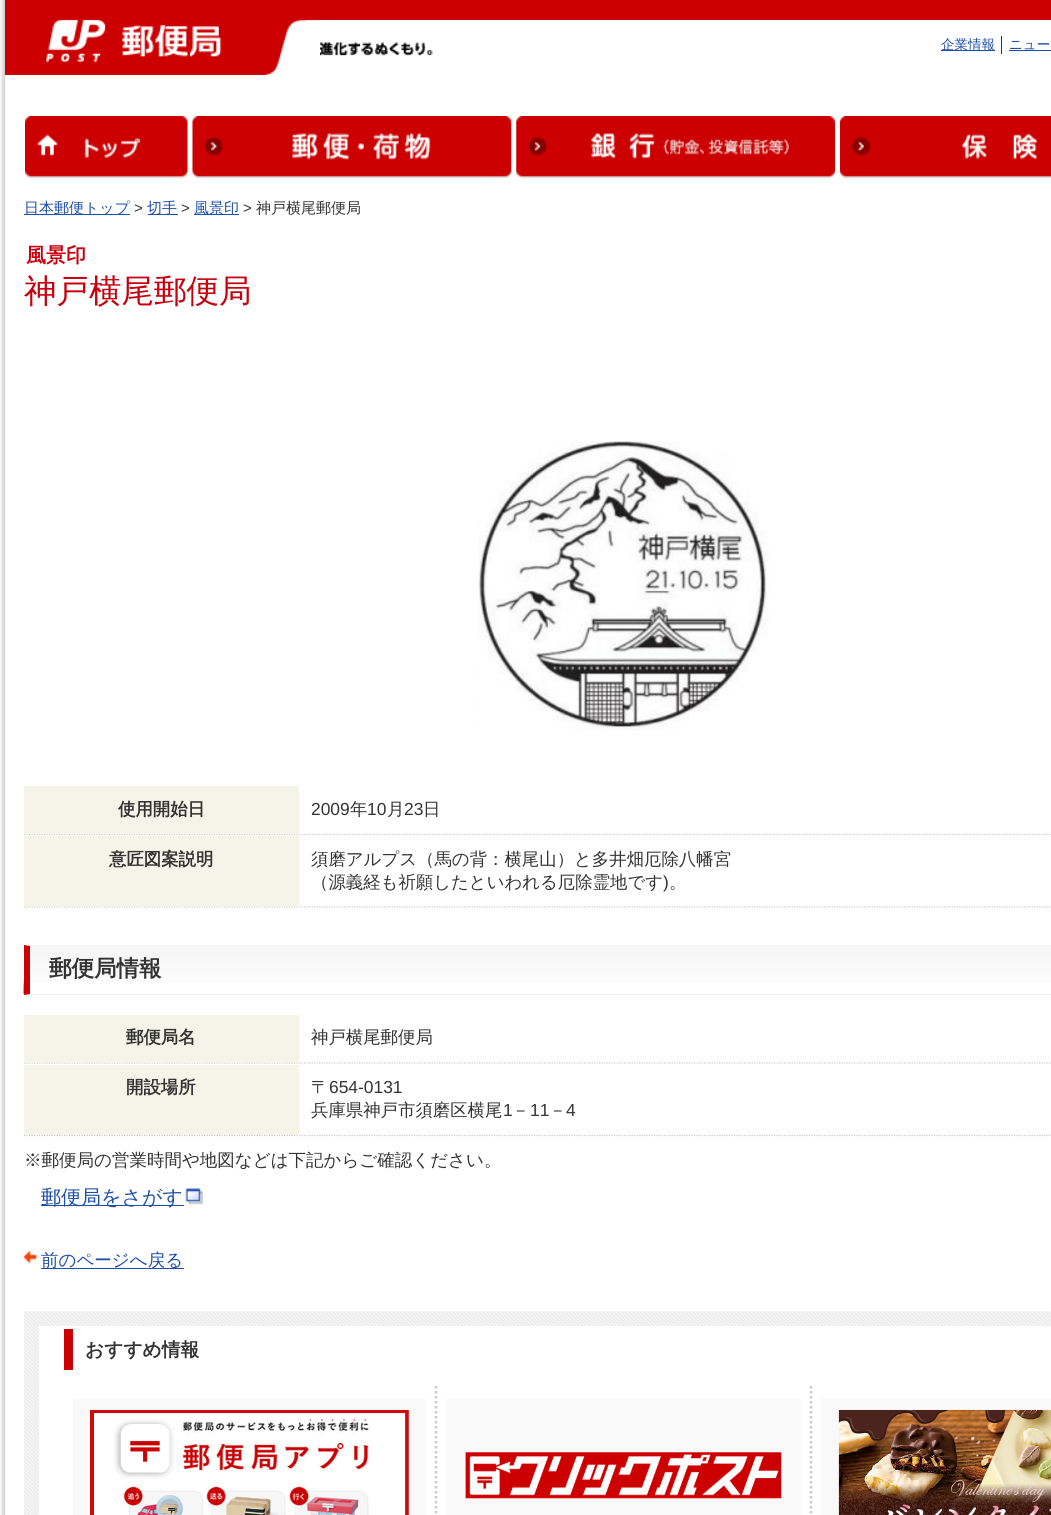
import math
import cairo

surface = cairo.ImageSurface(cairo.FORMAT_RGB24, 1051, 1515)
cr = cairo.Context(surface)
options = cairo.FontOptions()
options.set_hint_metrics(cairo.HINT_METRICS_OFF)
options.set_hint_style(cairo.HINT_STYLE_NONE)
cr.set_font_options(options)
cr.set_miter_limit(4)


def rgb(code):
    cr.set_source_rgb(*(v / 255 for v in bytes.fromhex(code[-6:])))


def image(path, x, y, w, h):
    cr.save()
    cr.set_source_surface(cairo.ImageSurface.create_from_png(path), x, y)
    cr.rectangle(x, y, w, h)
    cr.fill()
    cr.restore()


rgb("#ffffff")
cr.paint()
image("img/1.png", 0, 0, 4, 1515)
rgb("#d0d0d0")
cr.rectangle(4, 0, 1, 1515)
cr.fill()
rgb("#cc0000")
cr.rectangle(5, 0, 1046, 20)
cr.fill()
image("img/2.png", 5, 19, 315, 56)
image("img/3.png", 320, 42, 113, 14)
for x, y, w, h, color in [
    (941, 50, 54, 1, "#1e4ea6"),
    (1001, 36, 1, 18, "#333333"),
    (1009, 50, 42, 1, "#1e4ea6"),
]:
    rgb(color)
    cr.rectangle(x, y, w, h)
    cr.fill()
image("img/4.png", 25, 116, 163, 63)
image("img/5.png", 192, 116, 320, 63)
image("img/6.png", 516, 116, 319, 63)
image("img/7.png", 840, 116, 211, 63)
for x, y, w, h, color in [
    (24, 214, 106, 1, "#1e4ea6"),
    (148, 214, 30, 1, "#1e4ea6"),
    (194, 214, 45, 1, "#1e4ea6"),
]:
    rgb(color)
    cr.rectangle(x, y, w, h)
    cr.fill()
image("img/8.png", 478, 441, 291, 290)
cr.new_path()
cr.move_to(24, 834.5)
cr.line_to(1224, 834.5)
rgb("#cccccc")
cr.set_line_width(1.2)
cr.set_dash([1.25, 1.25])
cr.stroke()
rgb("#f5f4e8")
cr.rectangle(24, 786, 275, 48)
cr.fill()
cr.new_path()
cr.move_to(24, 907)
cr.line_to(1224, 907)
rgb("#cccccc")
cr.stroke()
rgb("#f5f4e8")
cr.rectangle(24, 836, 275, 70)
cr.fill()
gradient = cairo.LinearGradient(626, 946, 626, 994)
gradient.add_color_stop_rgba(0, 0.961, 0.961, 0.961, 1)
gradient.add_color_stop_rgba(1, 1, 1, 1, 1)
cr.set_source(gradient)
cr.rectangle(30, 946, 1021, 36)
cr.fill()
rgb("#f6f6f6")
cr.new_path()
cr.move_to(25, 945)
cr.line_to(24, 945)
cr.line_to(30, 946)
cr.line_to(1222, 946)
cr.line_to(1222, 947)
cr.line_to(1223, 945)
cr.line_to(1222, 945)
cr.close_path()
cr.fill()
rgb("#efefef")
cr.new_path()
cr.move_to(25, 995)
cr.line_to(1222, 995)
cr.line_to(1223, 995)
cr.line_to(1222, 993)
cr.line_to(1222, 994)
cr.line_to(30, 994)
cr.line_to(24, 995)
cr.close_path()
cr.fill()
rgb("#ce0000")
cr.new_path()
cr.move_to(24, 945)
cr.line_to(24, 978)
cr.curve_to(24, 980, 23, 994, 24, 995)
cr.line_to(30, 994)
cr.line_to(30, 946)
cr.close_path()
cr.fill()
cr.new_path()
cr.move_to(24, 1063)
cr.line_to(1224, 1063)
rgb("#cccccc")
cr.stroke()
rgb("#f5f4e8")
cr.rectangle(24, 1015, 275, 48)
cr.fill()
cr.new_path()
cr.move_to(24, 1135.5)
cr.line_to(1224, 1135.5)
rgb("#cccccc")
cr.stroke()
rgb("#f5f4e8")
cr.rectangle(24, 1065, 275, 70)
cr.fill()
rgb("#1e4ea6")
cr.rectangle(41, 1205, 143, 1)
cr.fill()
image("img/9.png", 185, 1188, 18, 17)
image("img/10.png", 24, 1251, 13, 13)
cr.rectangle(41, 1268, 143, 1)
cr.fill()
image("img/11.png", 24, 1311, 1027, 204)
rgb("#ffffff")
cr.rectangle(39, 1326, 1012, 189)
cr.fill()
rgb("#cc0000")
cr.rectangle(64, 1329, 9, 41)
cr.fill()
cr.new_path()
cr.move_to(436, 1386)
cr.line_to(436, 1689)
rgb("#cccccc")
cr.set_line_width(2.5)
cr.set_dash([2.5, 2.5])
cr.stroke()
rgb("#f9f9f9")
cr.rectangle(73, 1399, 353, 116)
cr.fill()
image("img/12.png", 90, 1409, 320, 106)
cr.new_path()
cr.move_to(811, 1386)
cr.line_to(811, 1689)
rgb("#cccccc")
cr.stroke()
rgb("#f9f9f9")
cr.rectangle(446, 1399, 355, 116)
cr.fill()
image("img/13.png", 465, 1452, 317, 47)
cr.rectangle(821, 1399, 230, 116)
cr.fill()
image("img/14.png", 838, 1409, 213, 106)
cr.select_font_face("WenQuanYi Zen Hei Medium")
cr.set_font_size(13.5)
rgb("#1e4ea6")
cr.move_to(941, 49)
cr.show_text("企業情報")
cr.move_to(1009, 49)
cr.show_text("ニュー")
cr.set_font_size(15)
cr.move_to(24, 213)
cr.show_text("日本郵便トップ")
cr.select_font_face("Liberation Sans")
rgb("#333333")
cr.move_to(134, 213)
cr.show_text(">")
cr.select_font_face("WenQuanYi Zen Hei Medium")
rgb("#1e4ea6")
cr.move_to(147, 213)
cr.show_text("切手")
cr.select_font_face("Liberation Sans")
rgb("#333333")
cr.move_to(181, 213)
cr.show_text(">")
cr.select_font_face("WenQuanYi Zen Hei Medium")
rgb("#1e4ea6")
cr.move_to(194, 213)
cr.show_text("風景印")
cr.select_font_face("Liberation Sans")
rgb("#333333")
cr.move_to(243, 213)
cr.show_text(">")
cr.select_font_face("WenQuanYi Zen Hei Medium")
cr.move_to(256, 213)
cr.show_text("神戸横尾郵便局")
cr.select_font_face("WenQuanYi Zen Hei", cairo.FONT_SLANT_NORMAL, cairo.FONT_WEIGHT_BOLD)
cr.set_font_size(20)
rgb("#c7000e")
cr.move_to(26, 262)
cr.show_text("風景印")
cr.select_font_face("WenQuanYi Zen Hei Medium")
cr.set_font_size(32.5)
cr.move_to(24, 302)
cr.show_text("神戸横尾郵便局")
cr.select_font_face("WenQuanYi Zen Hei", cairo.FONT_SLANT_NORMAL, cairo.FONT_WEIGHT_BOLD)
cr.set_font_size(17.4)
rgb("#333333")
cr.move_to(118, 815)
cr.show_text("使用開始日")
cr.select_font_face("Liberation Sans")
cr.move_to(311, 815)
cr.show_text("2009")
cr.select_font_face("WenQuanYi Zen Hei Medium")
cr.move_to(350, 815)
cr.show_text("年")
cr.select_font_face("Liberation Sans")
cr.move_to(367, 815)
cr.show_text("10")
cr.select_font_face("WenQuanYi Zen Hei Medium")
cr.move_to(387, 815)
cr.show_text("月")
cr.select_font_face("Liberation Sans")
cr.move_to(404, 815)
cr.show_text("23")
cr.select_font_face("WenQuanYi Zen Hei Medium")
cr.move_to(423, 815)
cr.show_text("日")
cr.select_font_face("WenQuanYi Zen Hei", cairo.FONT_SLANT_NORMAL, cairo.FONT_WEIGHT_BOLD)
cr.move_to(109, 865)
cr.show_text("意匠図案説明")
cr.select_font_face("WenQuanYi Zen Hei Medium")
cr.move_to(311, 865)
cr.show_text("須磨アルプス（馬の背：横尾山）と多井畑厄除八幡宮")
cr.move_to(311, 888)
cr.show_text("（源義経も祈願したといわれる厄除霊地です")
cr.select_font_face("Liberation Sans")
cr.move_to(663, 888)
cr.show_text(")")
cr.select_font_face("WenQuanYi Zen Hei Medium")
cr.move_to(669, 888)
cr.show_text("。")
cr.select_font_face("WenQuanYi Zen Hei", cairo.FONT_SLANT_NORMAL, cairo.FONT_WEIGHT_BOLD)
cr.set_font_size(22.5)
cr.move_to(49, 976)
cr.show_text("郵便局情報")
cr.set_font_size(17.4)
cr.move_to(126, 1043)
cr.show_text("郵便局名")
cr.select_font_face("WenQuanYi Zen Hei Medium")
cr.move_to(311, 1043)
cr.show_text("神戸横尾郵便局")
cr.select_font_face("WenQuanYi Zen Hei", cairo.FONT_SLANT_NORMAL, cairo.FONT_WEIGHT_BOLD)
cr.move_to(126, 1093)
cr.show_text("開設場所")
cr.select_font_face("WenQuanYi Zen Hei Medium")
cr.move_to(311, 1093)
cr.show_text("〒")
cr.select_font_face("Liberation Sans")
cr.move_to(329, 1093)
cr.show_text("654-0131")
cr.select_font_face("WenQuanYi Zen Hei Medium")
cr.move_to(311, 1116)
cr.show_text("兵庫県神戸市須磨区横尾")
cr.select_font_face("Liberation Sans")
cr.move_to(503, 1116)
cr.show_text("1")
cr.select_font_face("WenQuanYi Zen Hei Medium")
cr.move_to(512, 1116)
cr.show_text("－")
cr.select_font_face("Liberation Sans")
cr.move_to(530, 1116)
cr.show_text("11")
cr.select_font_face("WenQuanYi Zen Hei Medium")
cr.move_to(549, 1116)
cr.show_text("－")
cr.select_font_face("Liberation Sans")
cr.move_to(566, 1116)
cr.show_text("4")
cr.select_font_face("WenQuanYi Zen Hei Medium")
cr.set_font_size(17.5)
cr.move_to(24, 1166)
cr.show_text("※郵便局の営業時間や地図などは下記からご確認ください。")
cr.set_font_size(20)
rgb("#1e4ea6")
cr.move_to(41, 1204)
cr.show_text("郵便局をさがす")
cr.set_font_size(17.5)
cr.move_to(41, 1266)
cr.show_text("前のページへ戻る")
cr.select_font_face("WenQuanYi Zen Hei", cairo.FONT_SLANT_NORMAL, cairo.FONT_WEIGHT_BOLD)
cr.set_font_size(18.75)
rgb("#333333")
cr.move_to(85, 1356)
cr.show_text("おすすめ情報")
surface.write_to_png("page.png")
